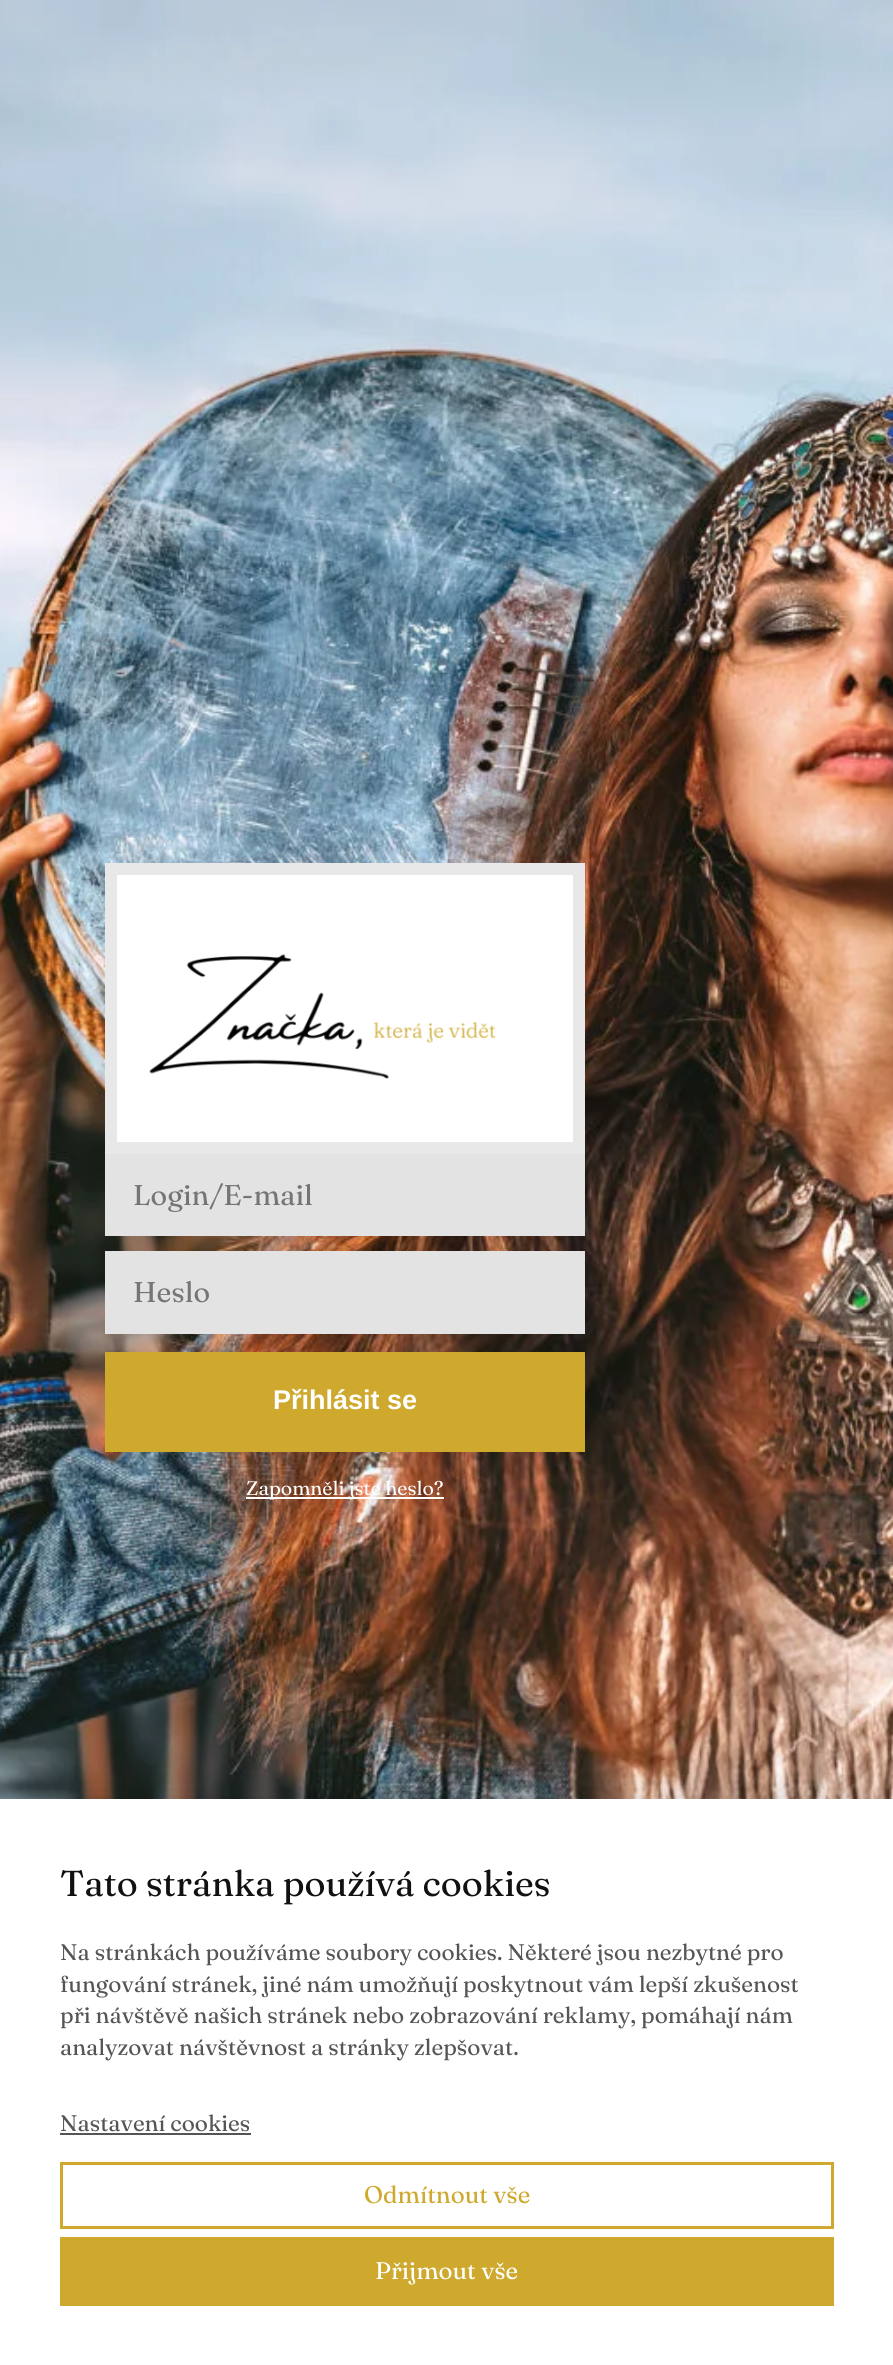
import math
import cairo

surface = cairo.ImageSurface(cairo.FORMAT_RGB24, 893, 2365)
cr = cairo.Context(surface)
options = cairo.FontOptions()
options.set_hint_metrics(cairo.HINT_METRICS_OFF)
options.set_hint_style(cairo.HINT_STYLE_NONE)
cr.set_font_options(options)
cr.set_miter_limit(4)


def rgb(code):
    cr.set_source_rgb(*(v / 255 for v in bytes.fromhex(code[-6:])))


def rrect(x, y, w, h, r):
    cr.new_sub_path()
    for i, (u, v) in enumerate([(x + w - r, y + h - r), (x + r, y + h - r), (x + r, y + r), (x + w - r, y + r)]):
        cr.arc(u, v, r, i * math.pi / 2, (i + 1) * math.pi / 2)
    cr.close_path()


def soft_shadow(x, y, w, h, r, blur, alpha):
    cr.push_group_with_content(cairo.CONTENT_ALPHA)
    cr.set_operator(cairo.OPERATOR_SOURCE)
    for i in range(15, -16, -2):
        e = blur * i / 6
        if min(w, h) + 2 * e > 0:
            cr.set_source_rgba(0, 0, 0, alpha * math.erfc((i - 1) / 8.5) / 2)
            rrect(x - e, y - e, w + 2 * e, h + 2 * e, max(0, min(r + e + blur * .6, min(w, h) / 2 + e)))
            cr.fill()
    cr.mask(cr.pop_group())


def image(path, x, y, w, h):
    cr.save()
    cr.set_source_surface(cairo.ImageSurface.create_from_png(path), x, y)
    cr.rectangle(x, y, w, h)
    cr.fill()
    cr.restore()


rgb("#ffffff")
cr.paint()
image("img/1.png", 0, 0, 893, 1799)
rgb("#ffffff")
cr.rectangle(111, 869, 468, 279)
cr.fill_preserve()
rgb("#e8e8e8")
cr.set_line_width(12)
cr.stroke()
image("img/2.png", 149, 954, 347, 125)
for x, y, w, h, color in [
    (105, 1154, 480, 82, "#e3e3e3"),
    (105, 1251, 480, 83, "#e3e3e3"),
    (105, 1352, 480, 100, "#cfa92d"),
    (246, 1497, 198, 2, "#ffffff"),
]:
    rgb(color)
    cr.rectangle(x, y, w, h)
    cr.fill()
rgb("#000000")
soft_shadow(0, 1799, 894, 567, 0, 22.5, 0.2)
rgb("#ffffff")
cr.rectangle(0, 1799, 893, 566)
cr.fill()
rgb("#555555")
cr.rectangle(60, 2133, 191, 2)
cr.fill()
cr.rectangle(61.5, 2163.5, 771, 64)
rgb("#cfa92d")
cr.set_line_width(3)
cr.stroke()
cr.rectangle(60, 2237, 774, 69)
cr.fill()
cr.select_font_face("Fraunces")
cr.set_font_size(28.5)
rgb("#757575")
cr.move_to(133, 1205)
cr.show_text("Login/E-mail")
cr.move_to(133, 1302)
cr.show_text("Heslo")
cr.select_font_face("Liberation Sans", cairo.FONT_SLANT_NORMAL, cairo.FONT_WEIGHT_BOLD)
cr.set_font_size(27)
rgb("#ffffff")
cr.move_to(273, 1409)
cr.show_text("Přihlásit se")
cr.select_font_face("Fraunces")
cr.set_font_size(19.5)
cr.move_to(246, 1495)
cr.show_text("Zapomněli jste heslo?")
cr.set_font_size(36)
rgb("#111111")
cr.move_to(60, 1896)
cr.show_text("Tato stránka používá cookies")
cr.set_font_size(22.5)
rgb("#555555")
for x, y, s in [
    (60, 1960, "Na stránkách používáme soubory cookies. Některé jsou nezbytné pro"),
    (60, 1992, "fungování stránek, jiné nám umožňují poskytnout vám lepší zkušenost"),
    (60, 2023, "při návštěvě našich stránek nebo zobrazování reklamy, pomáhají nám"),
    (60, 2055, "analyzovat návštěvnost a stránky zlepšovat."),
    (60, 2131, "Nastavení cookies"),
]:
    cr.move_to(x, y)
    cr.show_text(s)
cr.set_font_size(24)
rgb("#cfa92d")
cr.move_to(364, 2203)
cr.show_text("Odmítnout vše")
rgb("#ffffff")
cr.move_to(375, 2279)
cr.show_text("Přijmout vše")
surface.write_to_png("page.png")
